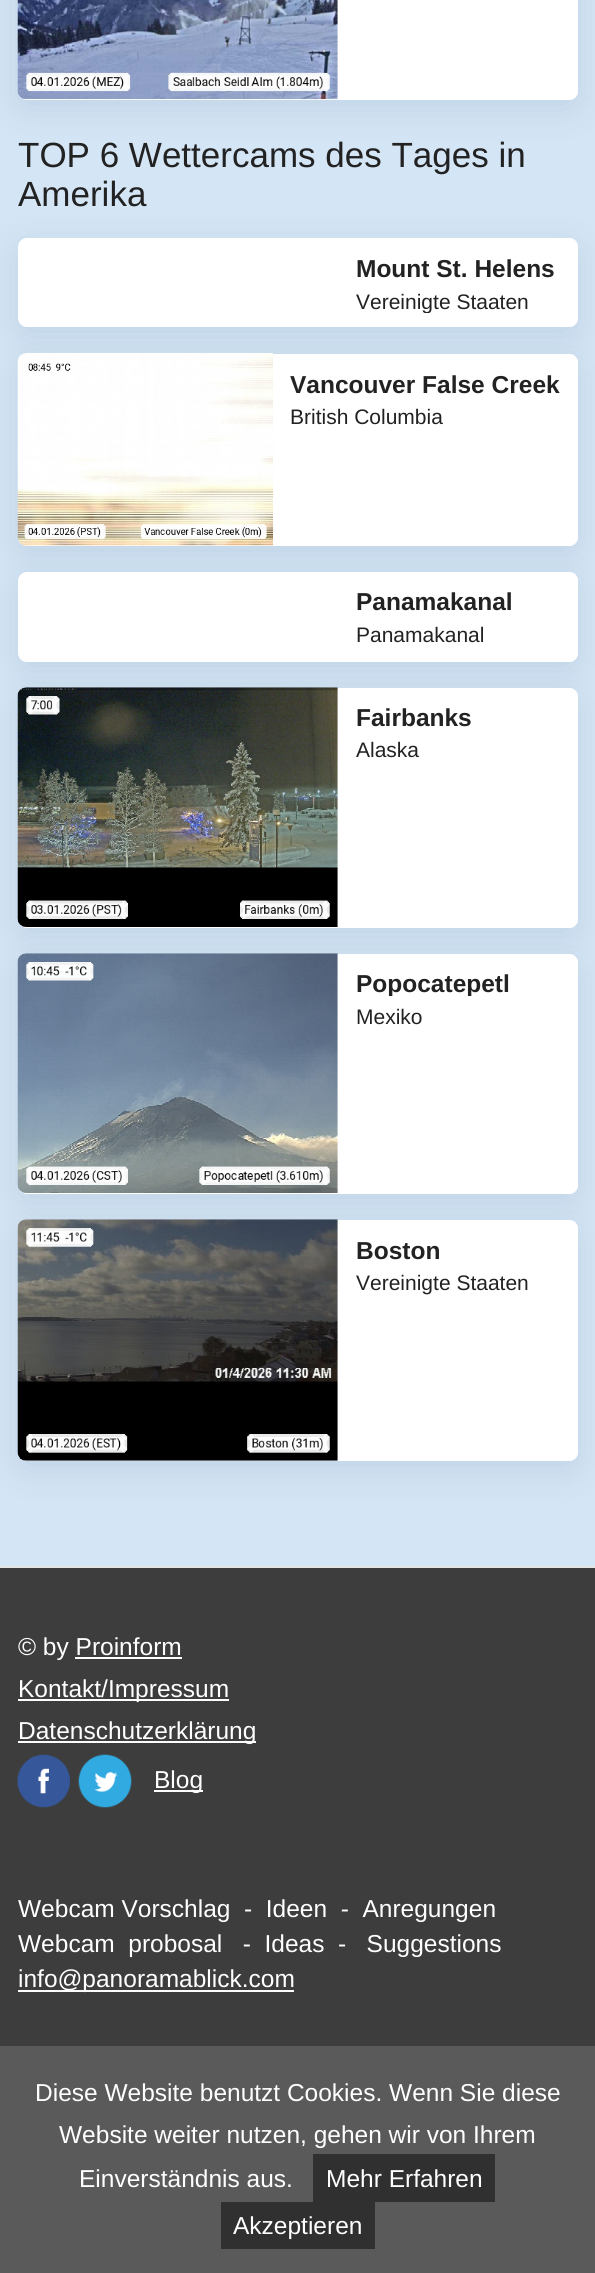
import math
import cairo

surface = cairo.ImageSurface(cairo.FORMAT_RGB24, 595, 2273)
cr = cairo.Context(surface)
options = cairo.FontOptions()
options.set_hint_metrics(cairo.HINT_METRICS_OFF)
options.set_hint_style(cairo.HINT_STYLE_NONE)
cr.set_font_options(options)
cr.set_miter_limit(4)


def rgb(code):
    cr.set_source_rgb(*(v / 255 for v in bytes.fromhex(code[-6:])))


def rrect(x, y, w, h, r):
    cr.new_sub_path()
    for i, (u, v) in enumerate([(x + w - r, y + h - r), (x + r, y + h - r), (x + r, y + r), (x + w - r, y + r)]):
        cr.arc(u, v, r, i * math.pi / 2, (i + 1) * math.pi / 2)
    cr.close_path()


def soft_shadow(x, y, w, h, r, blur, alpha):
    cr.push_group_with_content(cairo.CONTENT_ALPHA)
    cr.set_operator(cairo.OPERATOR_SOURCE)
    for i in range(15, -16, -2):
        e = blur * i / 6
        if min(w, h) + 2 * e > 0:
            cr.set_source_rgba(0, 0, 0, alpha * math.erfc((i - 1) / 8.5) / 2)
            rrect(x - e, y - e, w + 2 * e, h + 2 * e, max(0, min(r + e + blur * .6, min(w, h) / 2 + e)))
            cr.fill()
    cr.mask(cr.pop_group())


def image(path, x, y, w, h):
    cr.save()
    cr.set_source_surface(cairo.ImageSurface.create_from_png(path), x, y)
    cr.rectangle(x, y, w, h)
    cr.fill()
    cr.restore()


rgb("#d4e5f5")
cr.paint()
rgb("#00314b")
soft_shadow(18, -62, 560, 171, 9, 17.5, 0.1)
rgb("#ffffff")
rrect(18, -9, 560, 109, 9)
cr.fill()
image("img/1.png", 17, 0, 321, 100)
cr.new_path()
cr.move_to(338, -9)
cr.line_to(569, -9)
cr.curve_to(574, -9, 578, -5, 578, 0)
cr.line_to(578, 91)
cr.curve_to(578, 96, 574, 100, 569, 100)
cr.line_to(338, 100)
cr.close_path()
cr.fill()
rgb("#00314b")
soft_shadow(18, 247, 560, 89, 9, 17.5, 0.1)
rgb("#ffffff")
rrect(18, 238, 560, 89, 9)
cr.fill()
cr.new_path()
cr.move_to(338, 238)
cr.line_to(569, 238)
cr.curve_to(574, 238, 578, 242, 578, 247)
cr.line_to(578, 318)
cr.curve_to(578, 323, 574, 327, 569, 327)
cr.line_to(338, 327)
cr.close_path()
cr.fill()
rgb("#00314b")
soft_shadow(18, 362, 560, 193, 9, 17.5, 0.1)
rgb("#ffffff")
rrect(18, 354, 560, 192, 9)
cr.fill()
image("img/2.png", 17, 353, 256, 193)
cr.new_path()
cr.move_to(273, 354)
cr.line_to(569, 354)
cr.curve_to(574, 354, 578, 358, 578, 363)
cr.line_to(578, 537)
cr.curve_to(578, 542, 574, 546, 569, 546)
cr.line_to(273, 546)
cr.close_path()
cr.fill()
rgb("#00314b")
soft_shadow(18, 581, 560, 89, 9, 17.5, 0.1)
rgb("#ffffff")
rrect(18, 572, 560, 90, 9)
cr.fill()
cr.new_path()
cr.move_to(338, 572)
cr.line_to(569, 572)
cr.curve_to(574, 572, 578, 576, 578, 581)
cr.line_to(578, 653)
cr.curve_to(578, 658, 574, 662, 569, 662)
cr.line_to(338, 662)
cr.close_path()
cr.fill()
rgb("#00314b")
soft_shadow(18, 697, 560, 239, 9, 17.5, 0.1)
rgb("#ffffff")
rrect(18, 688, 560, 240, 9)
cr.fill()
image("img/3.png", 17, 687, 321, 240)
cr.new_path()
cr.move_to(338, 688)
cr.line_to(569, 688)
cr.curve_to(574, 688, 578, 692, 578, 697)
cr.line_to(578, 919)
cr.curve_to(578, 924, 574, 928, 569, 928)
cr.line_to(338, 928)
cr.close_path()
cr.fill()
rgb("#00314b")
soft_shadow(18, 963, 560, 239, 9, 17.5, 0.1)
rgb("#ffffff")
rrect(18, 954, 560, 240, 9)
cr.fill()
image("img/4.png", 17, 953, 321, 240)
cr.new_path()
cr.move_to(338, 954)
cr.line_to(569, 954)
cr.curve_to(574, 954, 578, 958, 578, 963)
cr.line_to(578, 1185)
cr.curve_to(578, 1190, 574, 1194, 569, 1194)
cr.line_to(338, 1194)
cr.close_path()
cr.fill()
rgb("#00314b")
soft_shadow(18, 1229, 560, 241, 9, 17.5, 0.1)
rgb("#ffffff")
rrect(18, 1220, 560, 241, 9)
cr.fill()
image("img/5.png", 17, 1219, 321, 242)
cr.new_path()
cr.move_to(338, 1220)
cr.line_to(569, 1220)
cr.curve_to(574, 1220, 578, 1224, 578, 1229)
cr.line_to(578, 1452)
cr.curve_to(578, 1457, 574, 1461, 569, 1461)
cr.line_to(338, 1461)
cr.close_path()
cr.fill()
for x, y, w, h, color in [
    (0, 1568, 595, 478, "#3d3d3d"),
    (0, 1566, 595, 2, "#e5e5e5"),
    (75, 1657, 107, 2, "#ffffff"),
    (18, 1699, 211, 2, "#ffffff"),
    (18, 1741, 238, 2, "#ffffff"),
]:
    rgb(color)
    cr.rectangle(x, y, w, h)
    cr.fill()
image("img/6.png", 17, 1754, 53, 54)
image("img/7.png", 78, 1754, 54, 54)
for x, y, w, h, color in [
    (154, 1790, 49, 2, "#ffffff"),
    (18, 1990, 276, 2, "#ffffff"),
    (0, 2046, 595, 227, "#5a5a5a"),
    (313, 2154, 182, 48, "#303030"),
    (221, 2202, 154, 47, "#303030"),
]:
    rgb(color)
    cr.rectangle(x, y, w, h)
    cr.fill()
cr.select_font_face("Liberation Sans")
cr.set_font_size(35)
rgb("#222222")
cr.move_to(18, 167)
cr.show_text("TOP 6 Wettercams des Tages in")
cr.move_to(18, 206)
cr.show_text("Amerika")
cr.select_font_face("Liberation Sans", cairo.FONT_SLANT_NORMAL, cairo.FONT_WEIGHT_BOLD)
cr.set_font_size(24.5)
cr.move_to(356, 277)
cr.show_text("Mount St. Helens")
cr.save()
cr.rectangle(355, 289, 205, 24)
cr.clip()
cr.select_font_face("Liberation Sans")
cr.set_font_size(21)
cr.move_to(356, 309)
cr.show_text("Vereinigte Staaten")
cr.restore()
cr.move_to(290, 393)
cr.show_text("Vancouver False Creek")
cr.select_font_face("Liberation Sans")
cr.set_font_size(21)
cr.move_to(290, 424)
cr.show_text("British Columbia")
cr.select_font_face("Liberation Sans", cairo.FONT_SLANT_NORMAL, cairo.FONT_WEIGHT_BOLD)
cr.set_font_size(24.5)
cr.move_to(356, 610)
cr.show_text("Panamakanal")
cr.select_font_face("Liberation Sans")
cr.set_font_size(21)
cr.move_to(356, 642)
cr.show_text("Panamakanal")
cr.select_font_face("Liberation Sans", cairo.FONT_SLANT_NORMAL, cairo.FONT_WEIGHT_BOLD)
cr.set_font_size(24.5)
cr.move_to(356, 726)
cr.show_text("Fairbanks")
cr.select_font_face("Liberation Sans")
cr.set_font_size(21)
cr.move_to(356, 757)
cr.show_text("Alaska")
cr.save()
cr.rectangle(355, 971, 205, 25)
cr.clip()
cr.select_font_face("Liberation Sans", cairo.FONT_SLANT_NORMAL, cairo.FONT_WEIGHT_BOLD)
cr.set_font_size(24.5)
cr.move_to(356, 992)
cr.show_text("Popocatepetl")
cr.restore()
cr.move_to(356, 1024)
cr.show_text("Mexiko")
cr.select_font_face("Liberation Sans", cairo.FONT_SLANT_NORMAL, cairo.FONT_WEIGHT_BOLD)
cr.set_font_size(24.5)
cr.move_to(356, 1259)
cr.show_text("Boston")
cr.select_font_face("Liberation Sans")
cr.set_font_size(21)
cr.move_to(356, 1290)
cr.show_text("Vereinigte Staaten")
cr.set_font_size(24.5)
rgb("#ffffff")
for x, y, s in [
    (18, 1655, "© by Proinform"),
    (18, 1697, "Kontakt/Impressum"),
    (18, 1739, "Datenschutzerklärung"),
    (154, 1788, "Blog"),
    (18, 1917, "Webcam Vorschlag  -  Ideen  -  Anregungen"),
    (18, 1952, "Webcam  probosal   -  Ideas  -   Suggestions"),
    (18, 1987, "info@panoramablick.com"),
    (35, 2101, "Diese Website benutzt Cookies. Wenn Sie diese"),
    (59, 2143, "Website weiter nutzen, gehen wir von Ihrem"),
    (79, 2187, "Einverständnis aus."),
    (326, 2187, "Mehr Erfahren"),
    (233, 2234, "Akzeptieren"),
]:
    cr.move_to(x, y)
    cr.show_text(s)
surface.write_to_png("page.png")
